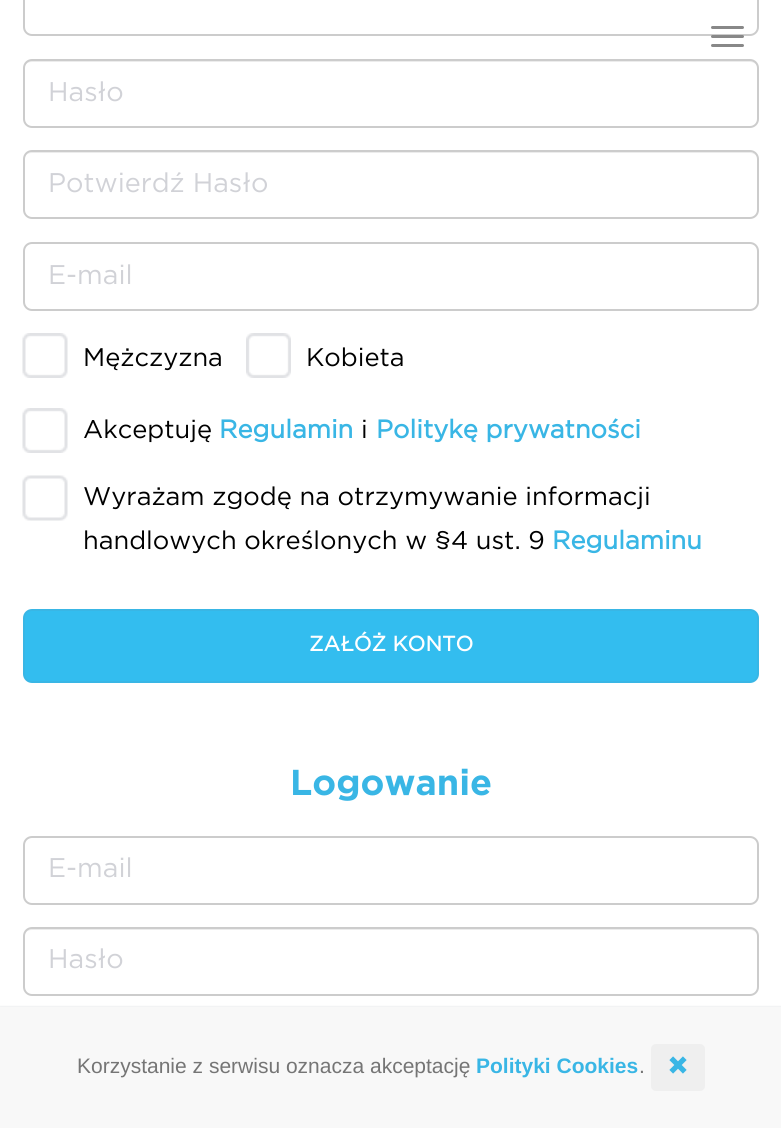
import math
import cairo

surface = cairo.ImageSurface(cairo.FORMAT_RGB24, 781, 1128)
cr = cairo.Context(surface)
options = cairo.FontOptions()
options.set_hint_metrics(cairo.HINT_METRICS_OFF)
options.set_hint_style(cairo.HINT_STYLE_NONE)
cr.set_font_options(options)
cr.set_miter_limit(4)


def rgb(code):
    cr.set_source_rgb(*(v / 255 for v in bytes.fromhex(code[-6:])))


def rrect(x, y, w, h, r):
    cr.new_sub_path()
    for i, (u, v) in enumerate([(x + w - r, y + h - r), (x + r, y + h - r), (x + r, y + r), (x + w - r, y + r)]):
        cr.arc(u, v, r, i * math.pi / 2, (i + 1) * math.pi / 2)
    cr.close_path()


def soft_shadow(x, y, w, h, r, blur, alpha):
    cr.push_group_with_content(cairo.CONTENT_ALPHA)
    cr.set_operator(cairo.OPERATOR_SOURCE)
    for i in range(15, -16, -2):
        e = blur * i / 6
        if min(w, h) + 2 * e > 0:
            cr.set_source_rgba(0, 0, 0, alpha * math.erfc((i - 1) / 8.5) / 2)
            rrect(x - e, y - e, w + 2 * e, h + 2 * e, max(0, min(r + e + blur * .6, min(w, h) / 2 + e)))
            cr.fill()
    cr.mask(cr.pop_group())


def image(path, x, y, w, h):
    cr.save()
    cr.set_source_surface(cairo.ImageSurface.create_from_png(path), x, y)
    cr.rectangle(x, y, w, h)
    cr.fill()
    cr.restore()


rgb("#ffffff")
cr.paint()
rrect(24, -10, 734, 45, 8)
rgb("#cccccc")
cr.stroke()
rgb("#888888")
rrect(711, 26, 33, 3, 1.5)
cr.fill()
rrect(711, 35, 33, 3, 1.5)
cr.fill()
rrect(711, 44, 33, 3, 1.5)
cr.fill()
rgb("#ececec")
cr.new_path()
cr.move_to(32, 62)
cr.line_to(750, 62)
cr.curve_to(754, 62, 758, 65, 758, 69)
cr.curve_to(758, 64, 755, 60, 750, 60)
cr.line_to(32, 60)
cr.curve_to(27, 60, 24, 64, 24, 69)
cr.curve_to(24, 65, 27, 62, 32, 62)
cr.close_path()
cr.fill()
rrect(24, 60, 734, 67, 8)
rgb("#cccccc")
cr.stroke()
rgb("#ececec")
cr.new_path()
cr.move_to(32, 153)
cr.line_to(750, 153)
cr.curve_to(754, 153, 758, 156, 758, 160)
cr.curve_to(758, 156, 754, 152, 750, 152)
cr.line_to(32, 152)
cr.curve_to(28, 152, 24, 156, 24, 160)
cr.curve_to(24, 156, 27, 153, 32, 153)
cr.close_path()
cr.fill()
rrect(24, 151, 734, 67, 8)
rgb("#cccccc")
cr.stroke()
rrect(24, 243, 734, 67, 8)
cr.stroke()
image("img/1.png", 22, 333, 46, 45)
image("img/2.png", 246, 333, 45, 45)
image("img/1.png", 22, 408, 46, 45)
image("img/3.png", 22, 475, 46, 46)
rgb("#33bdef")
rrect(24, 610, 734, 72, 8)
cr.fill_preserve()
rgb("#39b6e5")
cr.stroke()
rrect(24, 837, 734, 67, 8)
rgb("#cccccc")
cr.stroke()
rgb("#ececec")
cr.new_path()
cr.move_to(32, 930)
cr.line_to(750, 930)
cr.curve_to(754, 930, 758, 933, 758, 938)
cr.curve_to(758, 933, 755, 929, 750, 929)
cr.line_to(32, 929)
cr.curve_to(27, 929, 24, 933, 24, 938)
cr.curve_to(24, 933, 27, 930, 32, 930)
cr.close_path()
cr.fill()
rrect(24, 928, 734, 67, 8)
rgb("#cccccc")
cr.stroke()
rgb("#d8dcdd")
soft_shadow(0, 1007, 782, 121, 0, 1, 1)
rgb("#f8f8f8")
cr.rectangle(0, 1007, 781, 121)
cr.fill()
rgb("#efefef")
rrect(651, 1044, 54, 47, 5)
cr.fill()
image("img/4.png", 669, 1056, 18, 18)
cr.select_font_face("Gotham")
cr.set_font_size(27)
rgb("#d1d2d7")
for x, y, s in [
    (48, 101, "Hasło"),
    (48, 192, "Potwierdź Hasło"),
    (48, 284, "E-mail"),
]:
    cr.move_to(x, y)
    cr.show_text(s)
cr.set_font_size(25.5)
rgb("#000000")
for x, y, s in [
    (83, 366, "Mężczyzna"),
    (306, 366, "Kobieta"),
    (83, 438, "Akceptuję"),
]:
    cr.move_to(x, y)
    cr.show_text(s)
cr.select_font_face("Gotham", cairo.FONT_SLANT_NORMAL, cairo.FONT_WEIGHT_BOLD)
rgb("#39b6e5")
cr.move_to(219, 438)
cr.show_text("Regulamin")
cr.select_font_face("Gotham")
rgb("#000000")
cr.move_to(361, 438)
cr.show_text("i")
cr.select_font_face("Gotham", cairo.FONT_SLANT_NORMAL, cairo.FONT_WEIGHT_BOLD)
rgb("#39b6e5")
cr.move_to(376, 438)
cr.show_text("Politykę prywatności")
cr.select_font_face("Gotham")
rgb("#000000")
cr.move_to(83, 505)
cr.show_text("Wyrażam zgodę na otrzymywanie informacji")
cr.move_to(83, 549)
cr.show_text("handlowych określonych w §4 ust. 9")
cr.select_font_face("Gotham", cairo.FONT_SLANT_NORMAL, cairo.FONT_WEIGHT_BOLD)
rgb("#39b6e5")
cr.move_to(552, 549)
cr.show_text("Regulaminu")
cr.set_font_size(21)
rgb("#ffffff")
cr.move_to(309, 651)
cr.show_text("ZAŁÓŻ KONTO")
cr.select_font_face("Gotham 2", cairo.FONT_SLANT_NORMAL, cairo.FONT_WEIGHT_BOLD)
cr.set_font_size(36)
rgb("#39b6e5")
cr.move_to(290, 795)
cr.show_text("Logowanie")
cr.select_font_face("Gotham")
cr.set_font_size(27)
rgb("#d1d2d7")
cr.move_to(48, 877)
cr.show_text("E-mail")
cr.move_to(48, 968)
cr.show_text("Hasło")
cr.select_font_face("Liberation Sans")
cr.set_font_size(21)
rgb("#757575")
cr.move_to(77, 1073)
cr.show_text("Korzystanie z serwisu oznacza akceptację")
cr.select_font_face("Liberation Sans", cairo.FONT_SLANT_NORMAL, cairo.FONT_WEIGHT_BOLD)
rgb("#39b6e5")
cr.move_to(476, 1073)
cr.show_text("Polityki Cookies")
cr.select_font_face("Liberation Sans")
rgb("#757575")
cr.move_to(639, 1073)
cr.show_text(".")
surface.write_to_png("page.png")
